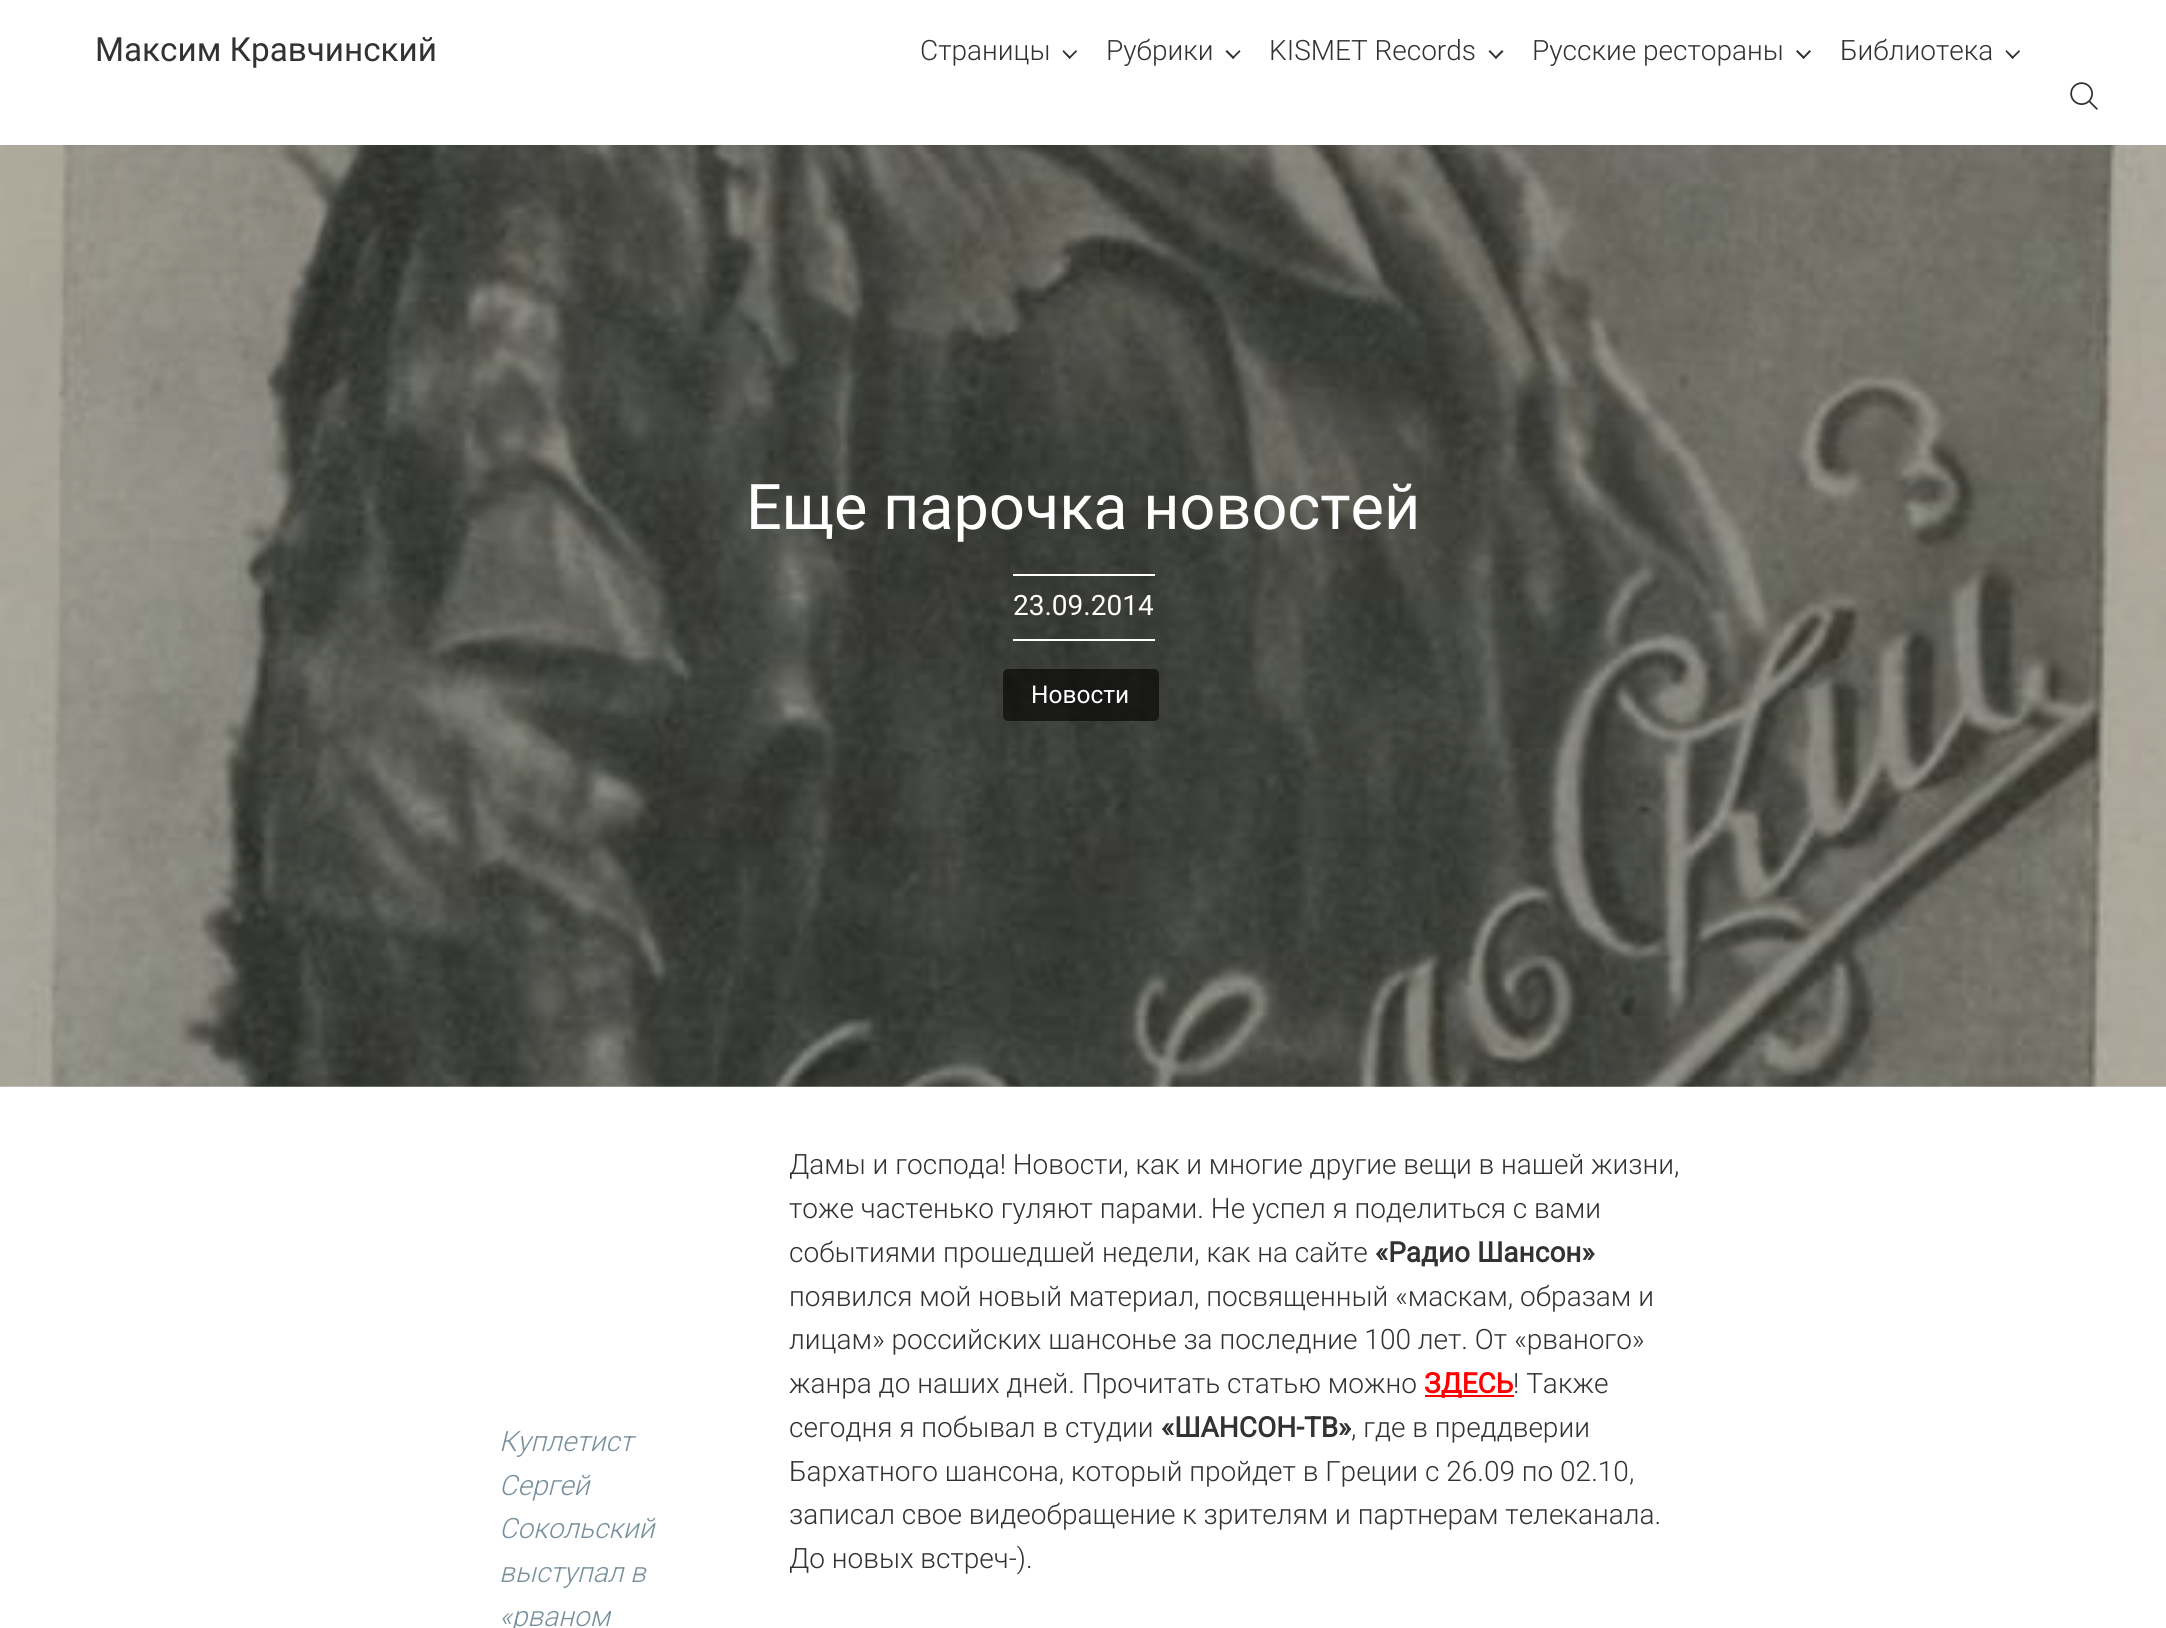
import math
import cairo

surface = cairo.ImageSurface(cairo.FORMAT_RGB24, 2166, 1628)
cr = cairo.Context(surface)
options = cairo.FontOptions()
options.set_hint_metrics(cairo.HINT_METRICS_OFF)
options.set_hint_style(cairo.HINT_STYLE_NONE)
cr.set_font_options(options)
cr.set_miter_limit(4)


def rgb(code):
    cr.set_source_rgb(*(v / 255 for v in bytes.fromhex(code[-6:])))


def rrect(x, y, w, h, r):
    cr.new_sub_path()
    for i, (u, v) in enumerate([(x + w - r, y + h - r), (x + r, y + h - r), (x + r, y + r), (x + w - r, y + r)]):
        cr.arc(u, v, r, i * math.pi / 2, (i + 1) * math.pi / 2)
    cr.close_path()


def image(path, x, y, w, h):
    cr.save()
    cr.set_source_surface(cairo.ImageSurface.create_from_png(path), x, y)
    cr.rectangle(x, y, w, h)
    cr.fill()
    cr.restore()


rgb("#ffffff")
cr.paint()
rgb("#323232")
cr.new_path()
cr.move_to(1076, 50)
cr.line_to(1077, 51.5)
cr.line_to(1069.5, 59)
cr.line_to(1068.5, 57.5)
cr.close_path()
cr.fill()
cr.new_path()
cr.move_to(1063.5, 50)
cr.line_to(1071, 57.5)
cr.line_to(1069.5, 59)
cr.line_to(1062.5, 51.5)
cr.close_path()
cr.fill()
cr.new_path()
cr.move_to(1239.5, 50)
cr.line_to(1240.5, 51.5)
cr.line_to(1233, 59)
cr.line_to(1232, 57.5)
cr.close_path()
cr.fill()
cr.new_path()
cr.move_to(1227, 50)
cr.line_to(1234.5, 57.5)
cr.line_to(1233, 59)
cr.line_to(1225.5, 51.5)
cr.close_path()
cr.fill()
cr.new_path()
cr.move_to(1502, 50)
cr.line_to(1503.5, 51.5)
cr.line_to(1496, 59)
cr.line_to(1494.5, 57.5)
cr.close_path()
cr.fill()
cr.new_path()
cr.move_to(1490, 50)
cr.line_to(1497, 57.5)
cr.line_to(1496, 59)
cr.line_to(1488.5, 51.5)
cr.close_path()
cr.fill()
cr.new_path()
cr.move_to(1809.5, 50)
cr.line_to(1811, 51.5)
cr.line_to(1803.5, 59)
cr.line_to(1802.5, 57.5)
cr.close_path()
cr.fill()
cr.new_path()
cr.move_to(1797.5, 50)
cr.line_to(1805, 57.5)
cr.line_to(1803.5, 59)
cr.line_to(1796, 51.5)
cr.close_path()
cr.fill()
cr.new_path()
cr.move_to(2019, 50)
cr.line_to(2020, 51.5)
cr.line_to(2012.5, 59)
cr.line_to(2011.5, 57.5)
cr.close_path()
cr.fill()
cr.new_path()
cr.move_to(2006.5, 50)
cr.line_to(2014, 57.5)
cr.line_to(2012.5, 59)
cr.line_to(2005.5, 51.5)
cr.close_path()
cr.fill()
image("img/1.png", 2070, 82, 28, 28)
image("img/2.png", 0, 145, 2166, 942)
rgb("#ffffff")
cr.rectangle(1013, 574, 142, 2)
cr.fill()
cr.rectangle(1013, 639, 142, 2)
cr.fill()
cr.set_source_rgba(0, 0, 0, 0.6)
rrect(1003, 669, 156, 52, 5)
cr.fill()
rgb("#ff0000")
cr.rectangle(1425, 1395, 89, 2)
cr.fill()
cr.select_font_face("Roboto")
cr.set_font_size(33.25)
rgb("#323232")
cr.move_to(95, 61)
cr.show_text("Максим Кравчинский")
cr.select_font_face("Roboto Light")
cr.set_font_size(28)
for x, y, s in [
    (920, 60, "Страницы"),
    (1106, 60, "Рубрики"),
    (1269, 60, "KISMET Records"),
    (1532, 60, "Русские рестораны"),
    (1840, 60, "Библиотека"),
]:
    cr.move_to(x, y)
    cr.show_text(s)
cr.select_font_face("Roboto")
cr.set_font_size(63)
rgb("#ffffff")
cr.move_to(746, 529)
cr.show_text("Еще парочка новостей")
cr.set_font_size(28)
cr.move_to(1013, 615)
cr.show_text("23.09.2014")
cr.set_font_size(24.5)
cr.move_to(1031, 703)
cr.show_text("Новости")
cr.select_font_face("Roboto Light", cairo.FONT_SLANT_ITALIC)
cr.set_font_size(28)
rgb("#78909c")
for x, y, s in [
    (499, 1451, "Куплетист"),
    (499, 1495, "Сергей"),
    (499, 1538, "Сокольский"),
    (499, 1582, "выступал в"),
    (499, 1626, "«рваном"),
]:
    cr.move_to(x, y)
    cr.show_text(s)
cr.select_font_face("Roboto Light")
rgb("#323232")
for x, y, s in [
    (789, 1174, "Дамы и господа! Новости, как и многие другие вещи в нашей жизни,"),
    (789, 1218, "тоже частенько гуляют парами. Не успел я поделиться с вами"),
    (789, 1262, "событиями прошедшей недели, как на сайте"),
]:
    cr.move_to(x, y)
    cr.show_text(s)
cr.select_font_face("Roboto", cairo.FONT_SLANT_NORMAL, cairo.FONT_WEIGHT_BOLD)
cr.move_to(1375, 1262)
cr.show_text("«Радио Шансон»")
cr.select_font_face("Roboto Light")
for x, y, s in [
    (789, 1306, "появился мой новый материал, посвященный «маскам, образам и"),
    (789, 1349, "лицам» российских шансонье за последние 100 лет. От «рваного»"),
    (789, 1393, "жанра до наших дней. Прочитать статью можно"),
]:
    cr.move_to(x, y)
    cr.show_text(s)
cr.select_font_face("Roboto", cairo.FONT_SLANT_NORMAL, cairo.FONT_WEIGHT_BOLD)
rgb("#ff0000")
cr.move_to(1424, 1393)
cr.show_text("ЗДЕСЬ")
cr.select_font_face("Roboto Light")
rgb("#323232")
cr.move_to(1513, 1393)
cr.show_text("! Также")
cr.move_to(789, 1437)
cr.show_text("сегодня я побывал в студии")
cr.select_font_face("Roboto", cairo.FONT_SLANT_NORMAL, cairo.FONT_WEIGHT_BOLD)
cr.move_to(1161, 1437)
cr.show_text("«ШАНСОН-ТВ»")
cr.select_font_face("Roboto Light")
for x, y, s in [
    (1351, 1437, ", где в преддверии"),
    (789, 1481, "Бархатного шансона, который пройдет в Греции с 26.09 по 02.10,"),
    (789, 1524, "записал свое видеобращение к зрителям и партнерам телеканала."),
    (789, 1568, "До новых встреч-)."),
]:
    cr.move_to(x, y)
    cr.show_text(s)
surface.write_to_png("page.png")
